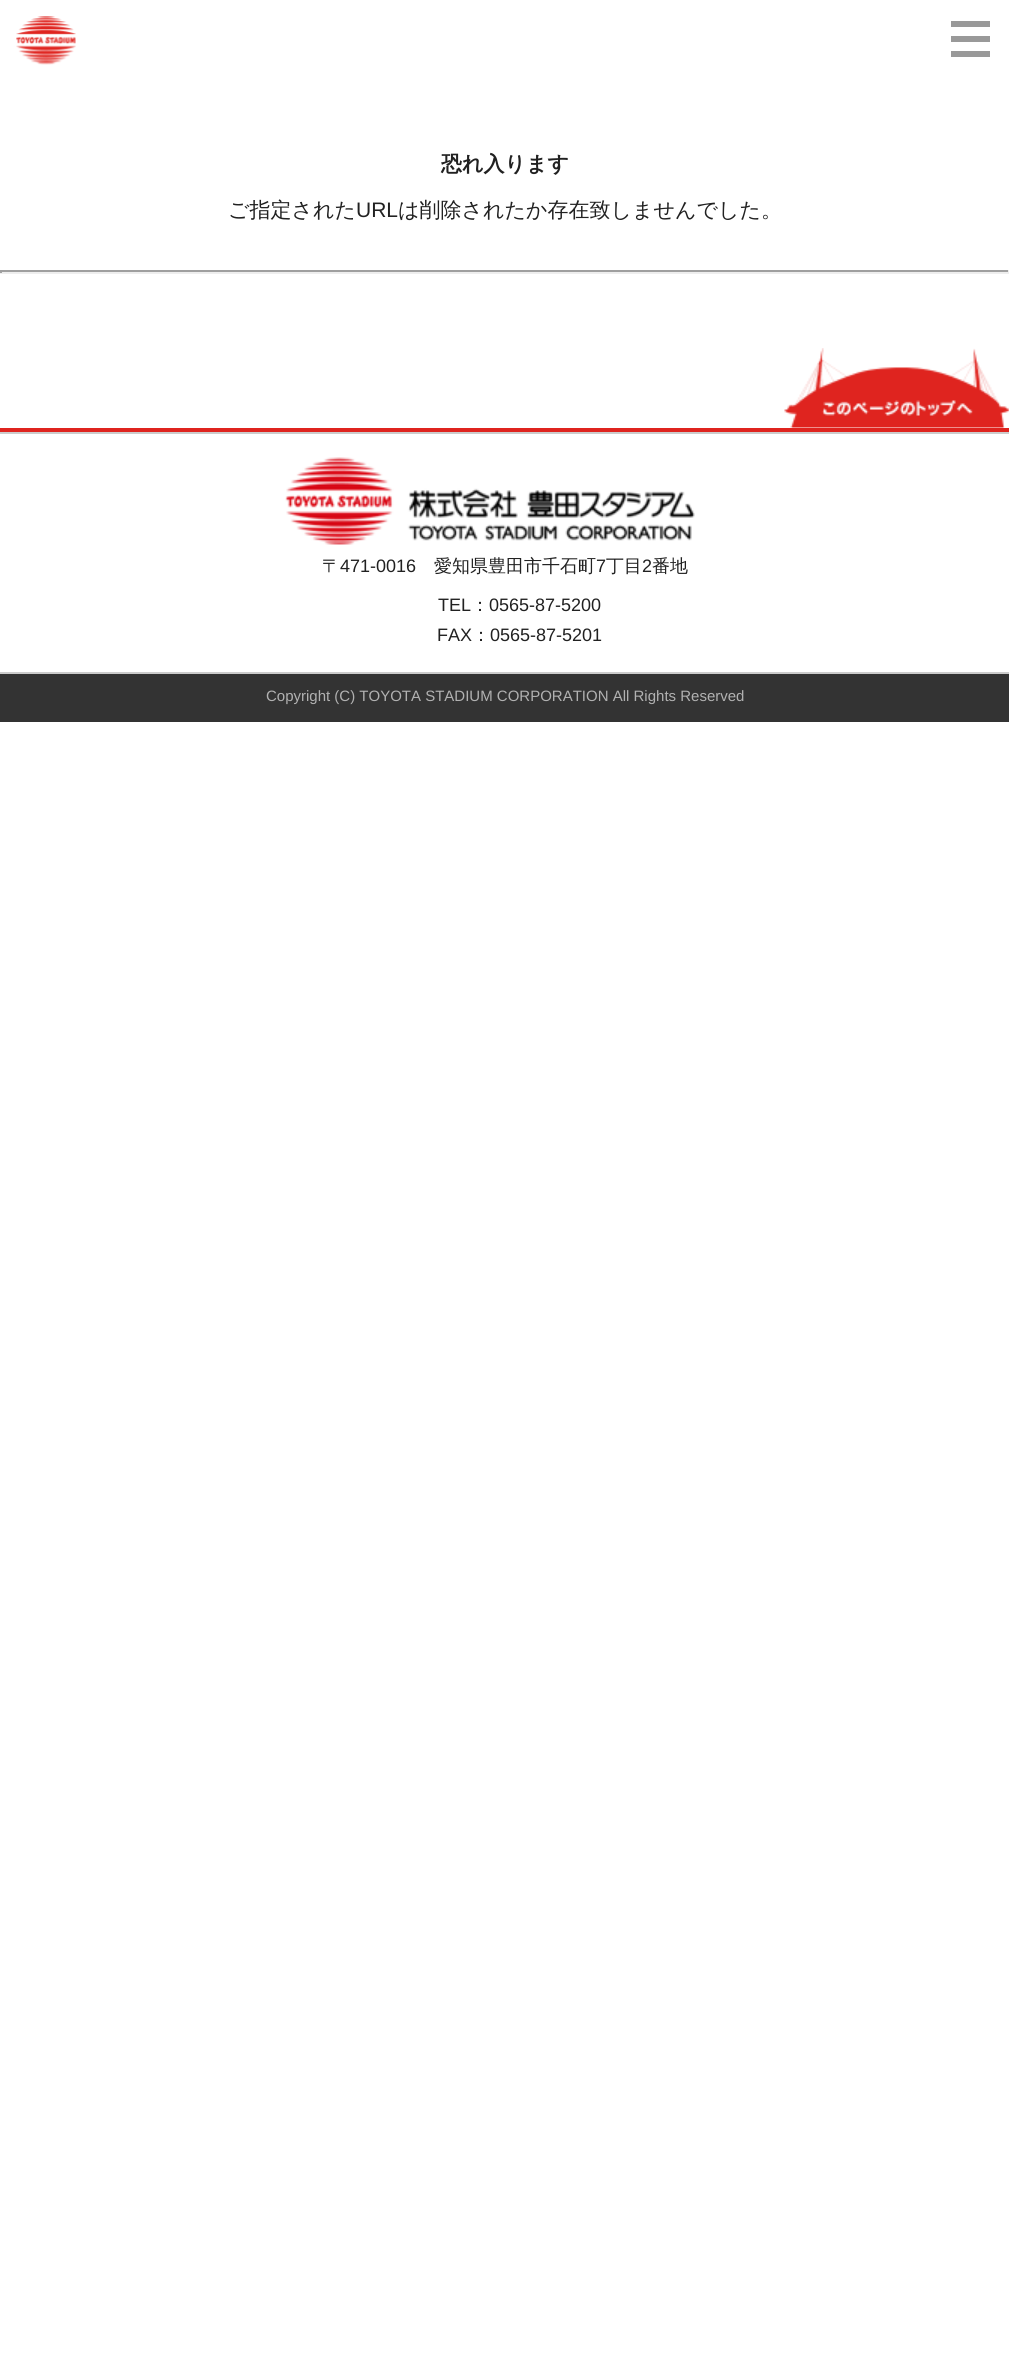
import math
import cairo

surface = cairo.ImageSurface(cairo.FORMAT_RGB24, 1009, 2375)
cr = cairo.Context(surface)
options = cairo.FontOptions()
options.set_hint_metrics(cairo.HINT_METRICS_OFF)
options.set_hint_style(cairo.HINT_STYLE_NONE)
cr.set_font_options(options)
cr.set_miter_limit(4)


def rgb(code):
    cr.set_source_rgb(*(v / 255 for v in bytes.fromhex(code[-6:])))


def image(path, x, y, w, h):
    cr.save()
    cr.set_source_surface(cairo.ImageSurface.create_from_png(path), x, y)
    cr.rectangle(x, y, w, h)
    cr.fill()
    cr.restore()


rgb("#ffffff")
cr.paint()
image("img/1.png", 16, 16, 60, 49)
for x, y, w, h, color in [
    (951, 36, 39, 6, "#999999"),
    (951, 21, 39, 6, "#999999"),
    (951, 51, 39, 6, "#999999"),
    (0, 270, 1009, 2, "#9f9f9f"),
    (1008, 270, 1, 3, "#eeeeee"),
    (0, 272, 1009, 2, "#eeeeee"),
    (0, 270, 2, 3, "#9f9f9f"),
]:
    rgb(color)
    cr.rectangle(x, y, w, h)
    cr.fill()
image("img/2.png", 784, 348, 225, 80)
for x, y, w, h, color in [
    (0, 428, 1009, 4, "#df241f"),
    (0, 432, 1009, 2, "#cccccc"),
    (0, 672, 1009, 2, "#cccccc"),
]:
    rgb(color)
    cr.rectangle(x, y, w, h)
    cr.fill()
image("img/3.png", 285, 457, 410, 88)
rgb("#333333")
cr.rectangle(0, 674, 1009, 48)
cr.fill()
cr.select_font_face("WenQuanYi Zen Hei", cairo.FONT_SLANT_NORMAL, cairo.FONT_WEIGHT_BOLD)
cr.set_font_size(21)
rgb("#212121")
cr.move_to(441, 171)
cr.show_text("恐れ入ります")
cr.select_font_face("WenQuanYi Zen Hei Medium")
cr.move_to(228, 217)
cr.show_text("ご指定された")
cr.select_font_face("Liberation Sans")
cr.move_to(356, 217)
cr.show_text("URL")
cr.select_font_face("WenQuanYi Zen Hei Medium")
cr.move_to(398, 217)
cr.show_text("は削除されたか存在致しませんでした。")
cr.set_font_size(18)
cr.move_to(322, 572)
cr.show_text("〒")
cr.select_font_face("Liberation Sans")
cr.move_to(340, 572)
cr.show_text("471-0016")
cr.select_font_face("WenQuanYi Zen Hei Medium")
cr.move_to(434, 572)
cr.show_text("愛知県豊田市千石町")
cr.select_font_face("Liberation Sans")
cr.move_to(596, 572)
cr.show_text("7")
cr.select_font_face("WenQuanYi Zen Hei Medium")
cr.move_to(606, 572)
cr.show_text("丁目")
cr.select_font_face("Liberation Sans")
cr.move_to(642, 572)
cr.show_text("2")
cr.select_font_face("WenQuanYi Zen Hei Medium")
cr.move_to(652, 572)
cr.show_text("番地")
cr.select_font_face("Liberation Sans")
cr.move_to(438, 611)
cr.show_text("TEL")
cr.select_font_face("WenQuanYi Zen Hei Medium")
cr.move_to(471, 611)
cr.show_text("：")
cr.select_font_face("Liberation Sans")
cr.move_to(489, 611)
cr.show_text("0565-87-5200")
cr.move_to(437, 641)
cr.show_text("FAX")
cr.select_font_face("WenQuanYi Zen Hei Medium")
cr.move_to(472, 641)
cr.show_text("：")
cr.select_font_face("Liberation Sans")
cr.move_to(490, 641)
cr.show_text("0565-87-5201")
cr.set_font_size(15)
rgb("#b1b1b1")
cr.move_to(266, 701)
cr.show_text("Copyright (C) TOYOTA STADIUM CORPORATION All Rights Reserved")
surface.write_to_png("page.png")
